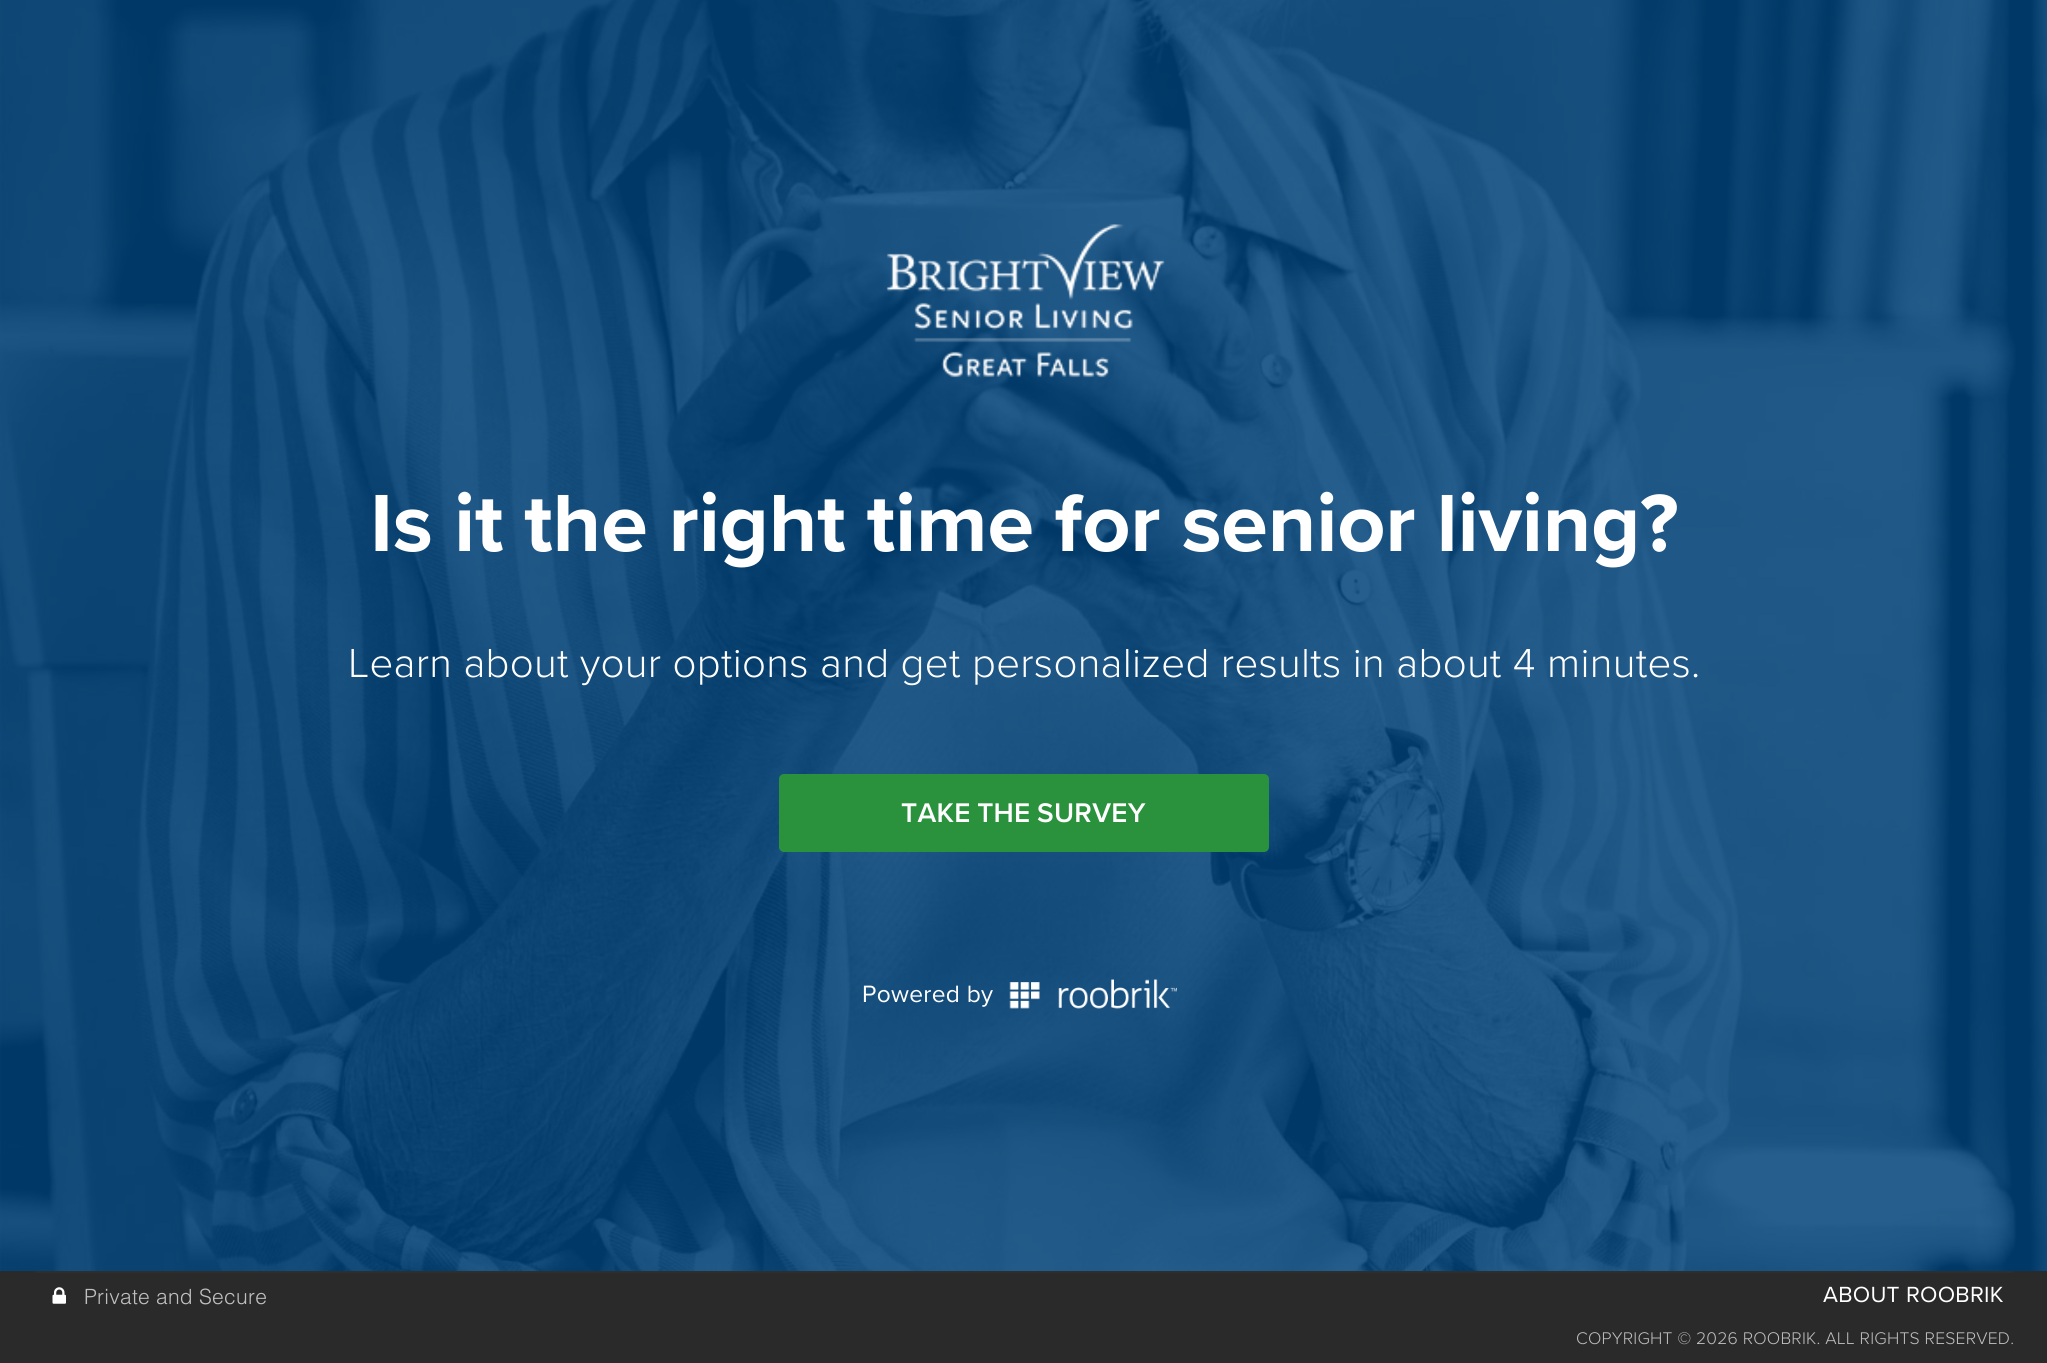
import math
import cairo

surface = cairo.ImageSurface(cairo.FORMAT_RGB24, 2047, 1363)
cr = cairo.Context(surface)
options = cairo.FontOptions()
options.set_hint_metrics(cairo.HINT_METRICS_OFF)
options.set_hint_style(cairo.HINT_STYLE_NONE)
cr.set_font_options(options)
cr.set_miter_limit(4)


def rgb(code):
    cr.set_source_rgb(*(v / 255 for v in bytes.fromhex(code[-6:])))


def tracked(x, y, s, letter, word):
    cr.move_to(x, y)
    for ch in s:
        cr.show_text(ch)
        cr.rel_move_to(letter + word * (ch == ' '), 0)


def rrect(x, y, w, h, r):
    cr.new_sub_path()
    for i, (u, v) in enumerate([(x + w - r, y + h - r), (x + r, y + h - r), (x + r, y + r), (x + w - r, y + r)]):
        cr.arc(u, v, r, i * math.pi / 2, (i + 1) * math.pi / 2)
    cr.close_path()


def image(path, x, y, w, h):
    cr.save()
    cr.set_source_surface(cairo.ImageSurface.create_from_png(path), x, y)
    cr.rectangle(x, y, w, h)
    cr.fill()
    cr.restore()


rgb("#ffffff")
cr.paint()
image("img/1.png", 0, 0, 2047, 1271)
image("img/2.png", 886, 224, 279, 154)
rgb("#2a913c")
rrect(779, 774, 490, 78, 5)
cr.fill()
image("img/3.png", 1009, 979, 168, 30)
rgb("#2a2a2a")
cr.rectangle(0, 1271, 2047, 92)
cr.fill()
rgb("#2e2e2e")
cr.rectangle(35, 1271, 1978, 2)
cr.fill()
image("img/4.png", 52, 1287, 14, 17)
cr.select_font_face("Proxima Nova", cairo.FONT_SLANT_NORMAL, cairo.FONT_WEIGHT_BOLD)
cr.set_font_size(84)
rgb("#ffffff")
tracked(370, 551, "Is it the right time for senior living?", -0.15, -0.25)
cr.select_font_face("Proxima Nova Light")
cr.set_font_size(42)
tracked(348, 677, "Learn about your options and get personalized results in about 4 minutes.", 0.28, 0)
cr.select_font_face("Proxima Nova SemiBold")
cr.set_font_size(28)
tracked(901, 822, "TAKE THE SURVEY", 0.28, -1)
cr.select_font_face("Proxima Nova")
cr.set_font_size(24.5)
tracked(862, 1002, "Powered by", 0.28, 0)
cr.select_font_face("Helvetica Light")
cr.set_font_size(21)
rgb("#bfbfbf")
tracked(84, 1304, "Private and Secure", 0.25, 0)
cr.select_font_face("Proxima Nova")
cr.set_font_size(22.75)
rgb("#ffffff")
tracked(1823, 1302, "ABOUT ROOBRIK", 0.25, 0)
cr.select_font_face("Proxima Nova Light")
cr.set_font_size(17.5)
rgb("#bfbfbf")
tracked(1576, 1344, "COPYRIGHT © 2026 ROOBRIK. ALL RIGHTS RESERVED.", 0.2, 0)
surface.write_to_png("page.png")
